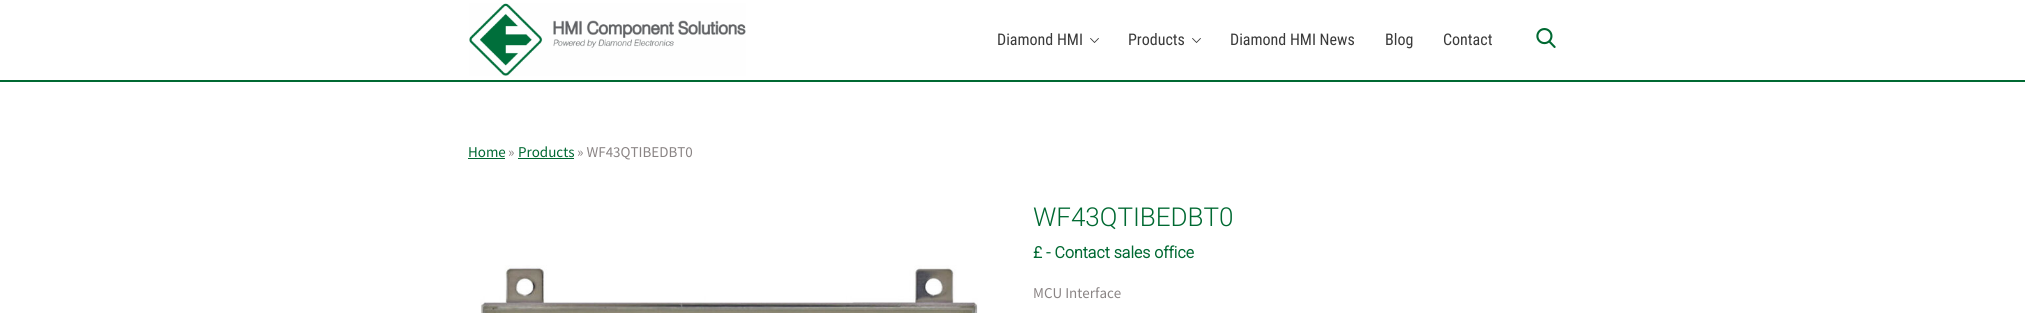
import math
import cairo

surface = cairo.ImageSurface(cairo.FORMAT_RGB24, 2025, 313)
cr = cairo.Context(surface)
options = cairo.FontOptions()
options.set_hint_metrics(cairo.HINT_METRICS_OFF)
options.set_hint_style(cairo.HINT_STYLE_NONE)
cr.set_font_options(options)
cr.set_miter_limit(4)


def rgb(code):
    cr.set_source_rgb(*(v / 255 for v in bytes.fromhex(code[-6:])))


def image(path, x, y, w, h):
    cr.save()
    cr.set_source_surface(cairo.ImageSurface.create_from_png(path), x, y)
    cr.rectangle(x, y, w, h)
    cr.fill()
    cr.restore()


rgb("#ffffff")
cr.paint()
image("img/1.png", 469, 3, 277, 73)
image("img/2.png", 1090, 38, 9, 5)
image("img/2.png", 1192, 38, 9, 5)
image("img/3.png", 1536, 28, 20, 20)
for x, y, w, h, color in [
    (0, 80, 2025, 2, "#006932"),
    (468, 158, 37, 1, "#006932"),
    (518, 158, 56, 1, "#006932"),
]:
    rgb(color)
    cr.rectangle(x, y, w, h)
    cr.fill()
image("img/4.png", 480, 265, 498, 48)
cr.select_font_face("Roboto Condensed")
cr.set_font_size(16)
rgb("#3a3a3a")
for x, y, s in [
    (997, 45, "Diamond HMI"),
    (1128, 45, "Products"),
    (1230, 45, "Diamond HMI News"),
    (1385, 45, "Blog"),
    (1443, 45, "Contact"),
]:
    cr.move_to(x, y)
    cr.show_text(s)
cr.select_font_face("Source Sans Pro")
cr.set_font_size(15)
rgb("#006932")
cr.move_to(468, 157)
cr.show_text("Home")
rgb("#8a8484")
cr.move_to(508, 157)
cr.show_text("»")
rgb("#006932")
cr.move_to(518, 157)
cr.show_text("Products")
rgb("#8a8484")
cr.move_to(577, 157)
cr.show_text("» WF43QTIBEDBT0")
cr.select_font_face("Roboto Light")
cr.set_font_size(26)
rgb("#006932")
cr.move_to(1033, 226)
cr.show_text("WF43QTIBEDBT0")
cr.select_font_face("Roboto", cairo.FONT_SLANT_NORMAL, cairo.FONT_WEIGHT_BOLD)
cr.set_font_size(16)
cr.move_to(1033, 258)
cr.show_text("£ - Contact sales office")
cr.select_font_face("Source Sans Pro")
cr.set_font_size(15)
rgb("#8a8484")
cr.move_to(1033, 298)
cr.show_text("MCU Interface")
surface.write_to_png("page.png")
